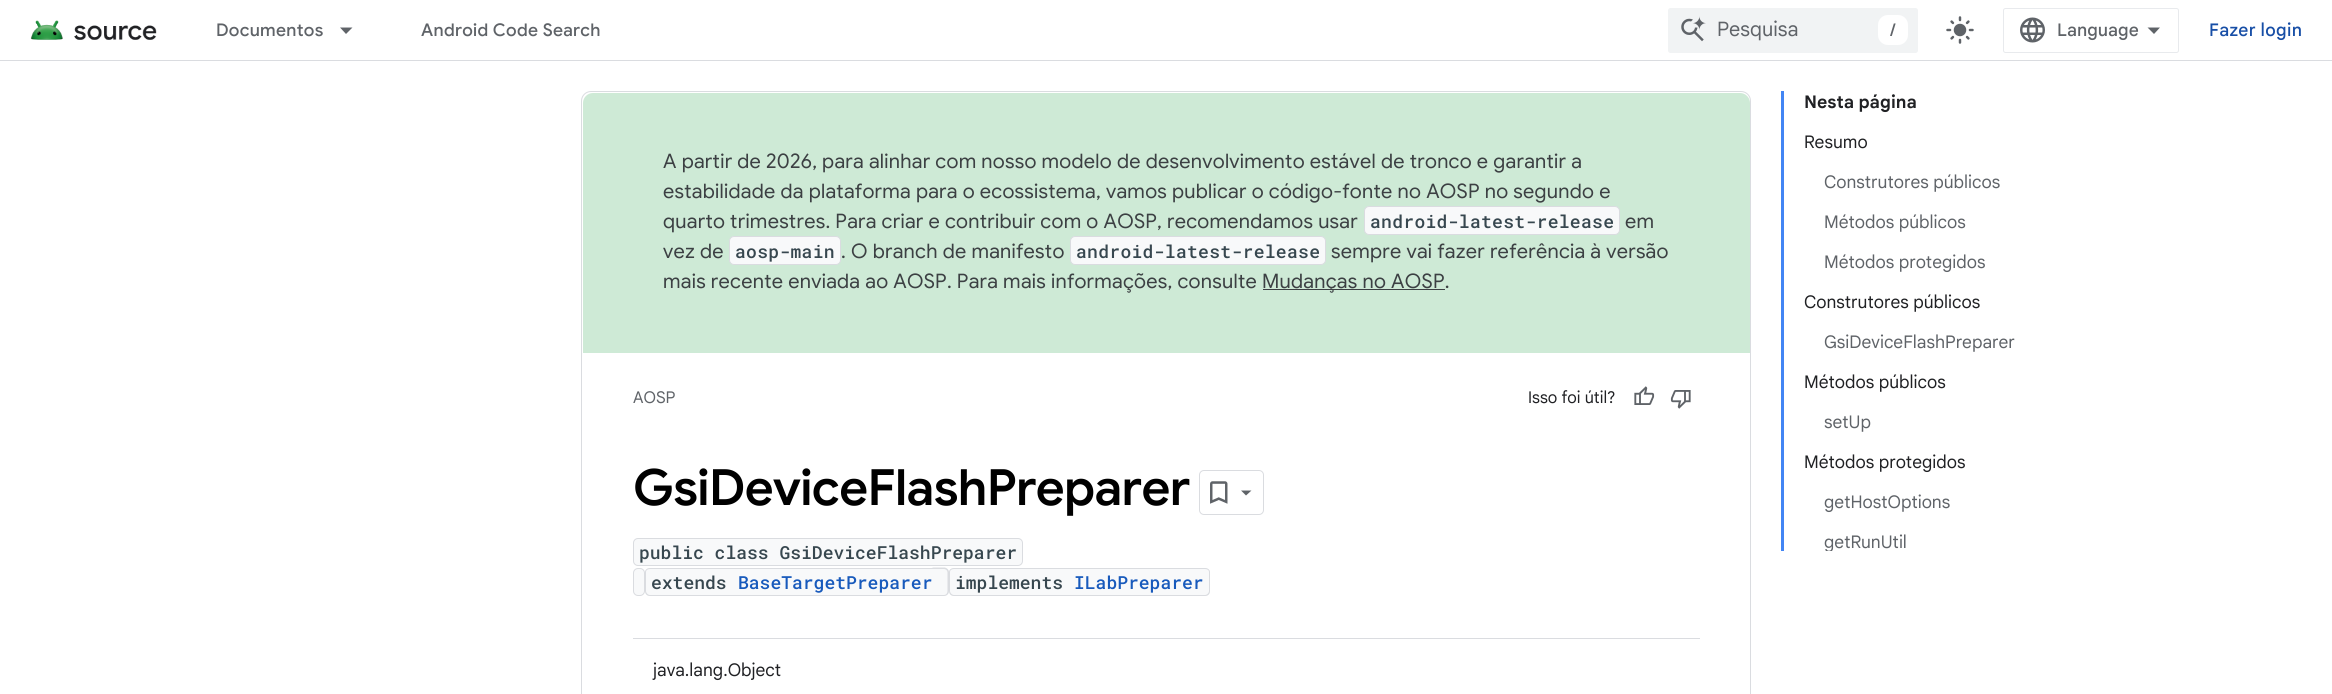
import math
import cairo

surface = cairo.ImageSurface(cairo.FORMAT_RGB24, 2332, 694)
cr = cairo.Context(surface)
options = cairo.FontOptions()
options.set_hint_metrics(cairo.HINT_METRICS_OFF)
options.set_hint_style(cairo.HINT_STYLE_NONE)
cr.set_font_options(options)
cr.set_miter_limit(4)


def rgb(code):
    cr.set_source_rgb(*(v / 255 for v in bytes.fromhex(code[-6:])))


def tracked(x, y, s, letter, word):
    cr.move_to(x, y)
    for ch in s:
        cr.show_text(ch)
        cr.rel_move_to(letter + word * (ch == ' '), 0)


def rrect(x, y, w, h, r):
    cr.new_sub_path()
    for i, (u, v) in enumerate([(x + w - r, y + h - r), (x + r, y + h - r), (x + r, y + r), (x + w - r, y + r)]):
        cr.arc(u, v, r, i * math.pi / 2, (i + 1) * math.pi / 2)
    cr.close_path()


def image(path, x, y, w, h):
    cr.save()
    cr.set_source_surface(cairo.ImageSurface.create_from_png(path), x, y)
    cr.rectangle(x, y, w, h)
    cr.fill()
    cr.restore()


rgb("#ffffff")
cr.paint()
rgb("#dadce0")
cr.rectangle(0, 60, 2332, 1)
cr.fill()
image("img/1.png", 30, 20, 127, 20)
rgb("#5f6368")
cr.new_path()
cr.move_to(340, 27.5)
cr.line_to(352.5, 27.5)
cr.line_to(346, 34)
cr.close_path()
cr.fill()
rgb("#f1f3f4")
rrect(1668, 8, 250, 45, 2.5)
cr.fill()
image("img/2.png", 1681, 16, 25, 26)
rgb("#ffffff")
rrect(1878, 15, 30, 30, 10)
cr.fill()
image("img/3.png", 1946, 16, 28, 28)
rrect(2003.5, 8.5, 175, 44, 2)
rgb("#e8eaed")
cr.set_line_width(1)
cr.stroke()
image("img/4.png", 2020, 17, 25, 26)
rgb("#5f6368")
cr.new_path()
cr.move_to(2154, 34)
cr.line_to(2147.5, 27.5)
cr.line_to(2160, 27.5)
cr.close_path()
cr.fill()
rrect(581.5, 91.5, 1169, 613, 9.5)
rgb("#dadce0")
cr.stroke()
rgb("#ceead6")
cr.new_path()
cr.move_to(593, 93)
cr.line_to(1740, 93)
cr.curve_to(1745.5, 93, 1750, 97.5, 1750, 103)
cr.line_to(1750, 353)
cr.line_to(583, 353)
cr.line_to(583, 103)
cr.curve_to(583, 97.5, 587.5, 93, 593, 93)
cr.close_path()
cr.fill()
rgb("#f8f9fa")
rrect(1364.5, 206.5, 255, 28, 4.5)
cr.fill_preserve()
rgb("#dadce0")
cr.stroke()
rgb("#f8f9fa")
rrect(729.5, 236.5, 111, 28, 4.5)
cr.fill_preserve()
rgb("#dadce0")
cr.stroke()
rgb("#f8f9fa")
rrect(1070.5, 236.5, 255, 28, 4.5)
cr.fill_preserve()
rgb("#dadce0")
cr.stroke()
rgb("#3c4043")
cr.rectangle(1263, 289, 182, 1)
cr.fill()
image("img/5.png", 1634, 386, 21, 19)
image("img/6.png", 1670, 390, 21, 19)
rrect(1199.5, 470.5, 64, 44, 4.5)
rgb("#dadce0")
cr.stroke()
image("img/7.png", 1210, 481, 18, 23)
rgb("#5f6368")
cr.new_path()
cr.move_to(1241, 490.5)
cr.line_to(1251.5, 490.5)
cr.line_to(1246, 495.5)
cr.close_path()
cr.fill()
rgb("#f8f9fa")
rrect(633.5, 538.5, 389, 27, 4.5)
cr.fill_preserve()
rgb("#dadce0")
cr.stroke()
rgb("#f8f9fa")
rrect(633.5, 568.5, 11, 27, 4.5)
cr.fill_preserve()
rgb("#dadce0")
cr.stroke()
rgb("#f8f9fa")
cr.new_path()
cr.move_to(650, 568)
cr.line_to(738, 568)
cr.line_to(738, 596)
cr.line_to(650, 596)
cr.curve_to(647, 596, 645, 594, 645, 591)
cr.line_to(645, 573)
cr.curve_to(645, 570, 647, 568, 650, 568)
cr.close_path()
cr.fill()
rgb("#dadce0")
cr.set_fill_rule(cairo.FILL_RULE_EVEN_ODD)
cr.new_path()
cr.move_to(650, 568)
cr.line_to(738, 568)
cr.line_to(738, 596)
cr.line_to(650, 596)
cr.curve_to(647, 596, 645, 594, 645, 591)
cr.line_to(645, 572)
cr.curve_to(645, 570, 647, 568, 650, 568)
cr.close_path()
cr.move_to(650, 569)
cr.line_to(738, 569)
cr.line_to(738, 595)
cr.line_to(650, 595)
cr.curve_to(648, 595, 646, 593, 646, 591)
cr.line_to(646, 572)
cr.curve_to(646, 570, 648, 569, 650, 569)
cr.close_path()
cr.fill()
for x, y, w, h, color in [
    (738, 569, 195, 26, "#f8f9fa"),
    (738, 568, 195, 1, "#dadce0"),
    (738, 595, 195, 1, "#dadce0"),
]:
    rgb(color)
    cr.rectangle(x, y, w, h)
    cr.fill()
rgb("#f8f9fa")
cr.new_path()
cr.move_to(933, 568)
cr.line_to(944, 568)
cr.curve_to(947, 568, 949, 570, 949, 573)
cr.line_to(949, 591)
cr.curve_to(949, 594, 947, 596, 944, 596)
cr.line_to(933, 596)
cr.close_path()
cr.fill()
rgb("#dadce0")
cr.new_path()
cr.move_to(932.5, 567.5)
cr.line_to(944, 567.5)
cr.curve_to(946.5, 567.5, 949, 569.5, 949, 572.5)
cr.line_to(949, 591)
cr.curve_to(949, 594, 946.5, 596, 944, 596)
cr.line_to(932.5, 596)
cr.close_path()
cr.move_to(932.5, 569)
cr.line_to(944, 569)
cr.curve_to(946, 569, 947.5, 570.5, 947.5, 572.5)
cr.line_to(947.5, 591)
cr.curve_to(947.5, 593.5, 946, 595, 944, 595)
cr.line_to(932.5, 595)
cr.close_path()
cr.fill()
rgb("#f8f9fa")
cr.new_path()
cr.move_to(954, 568)
cr.line_to(1074, 568)
cr.line_to(1074, 596)
cr.line_to(954, 596)
cr.curve_to(951, 596, 949, 594, 949, 591)
cr.line_to(949, 573)
cr.curve_to(949, 570, 951, 568, 954, 568)
cr.close_path()
cr.fill()
rgb("#dadce0")
cr.new_path()
cr.move_to(954, 568)
cr.line_to(1074, 568)
cr.line_to(1074, 596)
cr.line_to(954, 596)
cr.curve_to(951, 596, 949, 594, 949, 591)
cr.line_to(949, 572)
cr.curve_to(949, 570, 951, 568, 954, 568)
cr.close_path()
cr.move_to(954, 569)
cr.line_to(1074, 569)
cr.line_to(1074, 595)
cr.line_to(954, 595)
cr.curve_to(952, 595, 950, 593, 950, 591)
cr.line_to(950, 572)
cr.curve_to(950, 570, 952, 569, 954, 569)
cr.close_path()
cr.fill()
rgb("#f8f9fa")
cr.new_path()
cr.move_to(1074, 568)
cr.line_to(1205, 568)
cr.curve_to(1208, 568, 1210, 570, 1210, 573)
cr.line_to(1210, 591)
cr.curve_to(1210, 594, 1208, 596, 1205, 596)
cr.line_to(1074, 596)
cr.close_path()
cr.fill()
rgb("#dadce0")
cr.new_path()
cr.move_to(1074, 568)
cr.line_to(1205, 568)
cr.curve_to(1208, 568, 1210, 570, 1210, 572)
cr.line_to(1210, 591)
cr.curve_to(1210, 594, 1208, 596, 1205, 596)
cr.line_to(1074, 596)
cr.close_path()
cr.move_to(1074, 569)
cr.line_to(1205, 569)
cr.curve_to(1207, 569, 1209, 570, 1209, 572)
cr.line_to(1209, 591)
cr.curve_to(1209, 593, 1207, 595, 1205, 595)
cr.line_to(1074, 595)
cr.close_path()
cr.fill()
cr.rectangle(633, 638, 1067, 1)
cr.fill()
rgb("#4285f4")
cr.rectangle(1781, 91, 3, 460)
cr.fill()
cr.select_font_face("Google Sans Medium")
cr.set_font_size(17.5)
rgb("#5f6368")
tracked(216, 36, "Documentos", 0.3, 0)
tracked(421, 36, "Android Code Search", 0.3, 0)
cr.select_font_face("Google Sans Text")
cr.set_font_size(20)
cr.move_to(1717, 36)
cr.show_text("Pesquisa")
cr.select_font_face("Google Sans Medium")
cr.set_font_size(17.5)
cr.move_to(1890, 36)
cr.show_text("/")
cr.select_font_face("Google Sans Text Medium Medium")
cr.move_to(2057, 36)
cr.show_text("Language")
rgb("#174ea6")
tracked(2209, 36, "Fazer login", 0.3, 0)
cr.select_font_face("Google Sans")
cr.set_font_size(20)
rgb("#3c4043")
for x, y, s in [
    (663, 168, "A partir de 2026, para alinhar com nosso modelo de desenvolvimento estável de tronco e garantir a"),
    (663, 198, "estabilidade da plataforma para o ecossistema, vamos publicar o código-fonte no AOSP no segundo e"),
    (663, 228, "quarto trimestres. Para criar e contribuir com o AOSP, recomendamos usar"),
]:
    tracked(x, y, s, 0.3, 0)
cr.select_font_face("Roboto Mono Medium")
cr.set_font_size(18)
rgb("#37474f")
tracked(1370, 228, "android-latest-release", 0.3, 0)
cr.select_font_face("Google Sans")
cr.set_font_size(20)
rgb("#3c4043")
tracked(1625, 228, "em", 0.3, 0)
tracked(663, 258, "vez de", 0.3, 0)
cr.select_font_face("Roboto Mono Medium")
cr.set_font_size(18)
rgb("#37474f")
tracked(735, 258, "aosp-main", 0.3, 0)
cr.select_font_face("Google Sans")
cr.set_font_size(20)
rgb("#3c4043")
tracked(841, 258, ". O branch de manifesto", 0.3, 0)
cr.select_font_face("Roboto Mono Medium")
cr.set_font_size(18)
rgb("#37474f")
tracked(1076, 258, "android-latest-release", 0.3, 0)
cr.select_font_face("Google Sans")
cr.set_font_size(20)
rgb("#3c4043")
for x, y, s in [
    (1331, 258, "sempre vai fazer referência à versão"),
    (663, 288, "mais recente enviada ao AOSP. Para mais informações, consulte"),
    (1262, 288, "Mudanças no AOSP."),
]:
    tracked(x, y, s, 0.3, 0)
cr.select_font_face("Google Sans Text")
cr.set_font_size(16.25)
rgb("#5f6368")
cr.move_to(633, 403)
cr.show_text("AOSP")
rgb("#202124")
cr.move_to(1528, 403)
cr.show_text("Isso foi útil?")
cr.select_font_face("Google Sans SemiBold")
cr.set_font_size(50)
rgb("#000000")
tracked(633, 505, "GsiDeviceFlashPreparer", -0.6, 0)
cr.select_font_face("Roboto Mono Medium")
cr.set_font_size(18)
rgb("#37474f")
cr.move_to(639, 559)
cr.show_text("public class GsiDeviceFlashPreparer")
cr.move_to(651, 589)
cr.show_text("extends")
rgb("#185abc")
cr.move_to(738, 589)
cr.show_text("BaseTargetPreparer")
rgb("#37474f")
cr.move_to(955, 589)
cr.show_text("implements")
rgb("#185abc")
cr.move_to(1074, 589)
cr.show_text("ILabPreparer")
cr.select_font_face("Google Sans Text")
cr.set_font_size(17.5)
rgb("#202124")
cr.move_to(653, 676)
cr.show_text("java.lang.Object")
cr.select_font_face("Google Sans Text", cairo.FONT_SLANT_NORMAL, cairo.FONT_WEIGHT_BOLD)
cr.move_to(1804, 108)
cr.show_text("Nesta página")
cr.select_font_face("Google Sans Text")
cr.move_to(1804, 148)
cr.show_text("Resumo")
rgb("#5f6368")
for x, y, s in [
    (1824, 188, "Construtores públicos"),
    (1824, 228, "Métodos públicos"),
    (1824, 268, "Métodos protegidos"),
]:
    cr.move_to(x, y)
    cr.show_text(s)
rgb("#202124")
cr.move_to(1804, 308)
cr.show_text("Construtores públicos")
rgb("#5f6368")
cr.move_to(1824, 348)
cr.show_text("GsiDeviceFlashPreparer")
rgb("#202124")
cr.move_to(1804, 388)
cr.show_text("Métodos públicos")
rgb("#5f6368")
cr.move_to(1824, 428)
cr.show_text("setUp")
rgb("#202124")
cr.move_to(1804, 468)
cr.show_text("Métodos protegidos")
rgb("#5f6368")
cr.move_to(1824, 508)
cr.show_text("getHostOptions")
cr.save()
cr.set_fill_rule(cairo.FILL_RULE_WINDING)
cr.rectangle(1824, 91, 82, 460)
cr.clip()
cr.move_to(1824, 548)
cr.show_text("getRunUtil")
cr.restore()
surface.write_to_png("page.png")
